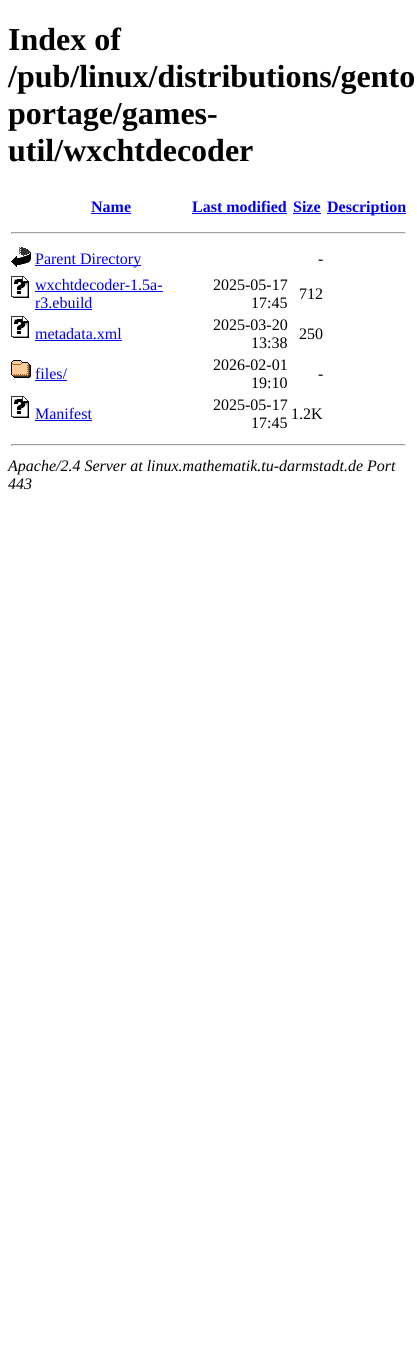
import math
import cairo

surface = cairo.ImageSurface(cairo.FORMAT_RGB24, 417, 1348)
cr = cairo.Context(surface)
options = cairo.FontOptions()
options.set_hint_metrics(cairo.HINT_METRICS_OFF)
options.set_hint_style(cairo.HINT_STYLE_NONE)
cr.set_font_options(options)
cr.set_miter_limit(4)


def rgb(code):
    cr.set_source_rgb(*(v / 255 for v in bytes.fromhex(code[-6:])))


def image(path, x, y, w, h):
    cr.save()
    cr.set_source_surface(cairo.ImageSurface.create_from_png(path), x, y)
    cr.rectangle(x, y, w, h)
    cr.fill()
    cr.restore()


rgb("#ffffff")
cr.paint()
for x, y, w, h, color in [
    (91, 213, 40, 1, "#0000ee"),
    (192, 213, 95, 1, "#0000ee"),
    (293, 213, 28, 1, "#0000ee"),
    (327, 213, 79, 1, "#0000ee"),
    (11, 232, 395, 1, "#9f9f9f"),
    (405, 232, 1, 2, "#eeeeee"),
    (11, 233, 395, 1, "#eeeeee"),
    (11, 232, 1, 2, "#9f9f9f"),
]:
    rgb(color)
    cr.rectangle(x, y, w, h)
    cr.fill()
image("img/1.png", 11, 247, 20, 20)
rgb("#0000ee")
cr.rectangle(35, 265, 106, 1)
cr.fill()
image("img/2.png", 11, 276, 18, 22)
cr.rectangle(35, 291, 128, 1)
cr.fill()
cr.rectangle(35, 309, 57, 1)
cr.fill()
image("img/2.png", 11, 316, 18, 22)
cr.rectangle(35, 340, 87, 1)
cr.fill()
image("img/3.png", 11, 360, 20, 18)
cr.rectangle(35, 380, 32, 1)
cr.fill()
image("img/2.png", 11, 396, 18, 22)
for x, y, w, h, color in [
    (35, 420, 57, 1, "#0000ee"),
    (11, 444, 395, 1, "#9f9f9f"),
    (405, 444, 1, 2, "#eeeeee"),
    (11, 445, 395, 1, "#eeeeee"),
    (11, 444, 1, 2, "#9f9f9f"),
]:
    rgb(color)
    cr.rectangle(x, y, w, h)
    cr.fill()
cr.select_font_face("Liberation Serif", cairo.FONT_SLANT_NORMAL, cairo.FONT_WEIGHT_BOLD)
cr.set_font_size(32)
rgb("#000000")
for x, y, s in [
    (8, 50, "Index of"),
    (8, 87, "/pub/linux/distributions/gento"),
    (8, 124, "portage/games-"),
    (8, 161, "util/wxchtdecoder"),
]:
    cr.move_to(x, y)
    cr.show_text(s)
cr.set_font_size(16)
rgb("#0000ee")
for x, y, s in [
    (91, 212, "Name"),
    (192, 212, "Last modified"),
    (293, 212, "Size"),
    (327, 212, "Description"),
]:
    cr.move_to(x, y)
    cr.show_text(s)
cr.select_font_face("Liberation Serif")
cr.move_to(35, 264)
cr.show_text("Parent Directory")
rgb("#000000")
cr.move_to(318, 264)
cr.show_text("-")
rgb("#0000ee")
cr.move_to(35, 290)
cr.show_text("wxchtdecoder-1.5a-")
cr.move_to(35, 308)
cr.show_text("r3.ebuild")
rgb("#000000")
for x, y, s in [
    (213, 290, "2025-05-17"),
    (251, 308, "17:45"),
    (299, 299, "712"),
]:
    cr.move_to(x, y)
    cr.show_text(s)
rgb("#0000ee")
cr.move_to(35, 339)
cr.show_text("metadata.xml")
rgb("#000000")
for x, y, s in [
    (213, 330, "2025-03-20"),
    (251, 348, "13:38"),
    (299, 339, "250"),
]:
    cr.move_to(x, y)
    cr.show_text(s)
rgb("#0000ee")
cr.move_to(35, 379)
cr.show_text("files/")
rgb("#000000")
for x, y, s in [
    (213, 370, "2026-02-01"),
    (251, 388, "19:10"),
    (318, 379, "-"),
]:
    cr.move_to(x, y)
    cr.show_text(s)
rgb("#0000ee")
cr.move_to(35, 419)
cr.show_text("Manifest")
rgb("#000000")
for x, y, s in [
    (213, 410, "2025-05-17"),
    (251, 428, "17:45"),
    (291, 419, "1.2K"),
]:
    cr.move_to(x, y)
    cr.show_text(s)
cr.select_font_face("Liberation Serif", cairo.FONT_SLANT_ITALIC)
cr.move_to(8, 471)
cr.show_text("Apache/2.4 Server at linux.mathematik.tu-darmstadt.de Port")
cr.move_to(8, 489)
cr.show_text("443")
surface.write_to_png("page.png")
